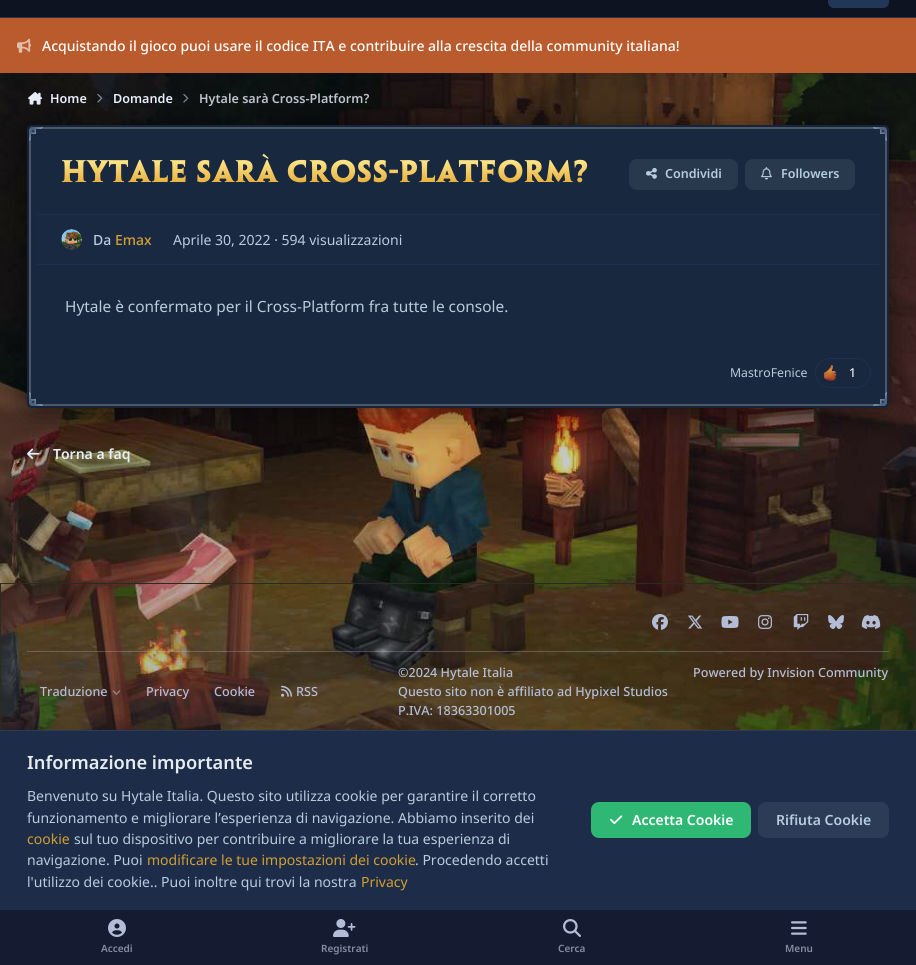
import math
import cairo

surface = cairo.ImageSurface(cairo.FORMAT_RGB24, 916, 965)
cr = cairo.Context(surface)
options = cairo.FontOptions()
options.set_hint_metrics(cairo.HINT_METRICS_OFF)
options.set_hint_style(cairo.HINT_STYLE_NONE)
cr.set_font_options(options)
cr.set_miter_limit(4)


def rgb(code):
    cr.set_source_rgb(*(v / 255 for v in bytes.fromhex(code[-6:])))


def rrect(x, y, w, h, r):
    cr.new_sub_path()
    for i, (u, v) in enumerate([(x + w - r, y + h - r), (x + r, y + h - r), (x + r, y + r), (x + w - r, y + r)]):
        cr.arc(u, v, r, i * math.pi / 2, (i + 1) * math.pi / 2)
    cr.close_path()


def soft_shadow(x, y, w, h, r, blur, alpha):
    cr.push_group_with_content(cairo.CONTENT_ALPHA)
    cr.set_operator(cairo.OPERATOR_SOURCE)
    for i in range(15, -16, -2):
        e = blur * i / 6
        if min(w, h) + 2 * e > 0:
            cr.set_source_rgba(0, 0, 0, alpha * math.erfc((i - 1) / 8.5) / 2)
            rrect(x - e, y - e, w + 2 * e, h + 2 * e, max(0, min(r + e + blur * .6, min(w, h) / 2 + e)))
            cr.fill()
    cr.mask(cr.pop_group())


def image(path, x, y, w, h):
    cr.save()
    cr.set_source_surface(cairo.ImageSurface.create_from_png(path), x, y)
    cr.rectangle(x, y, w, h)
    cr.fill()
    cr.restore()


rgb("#ffffff")
cr.paint()
rgb("#0e1322")
cr.rectangle(0, 0, 916, 17)
cr.fill()
rgb("#2e3441")
cr.rectangle(0, 17, 916, 1)
cr.fill()
rgb("#223659")
rrect(828, -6, 61, 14, 6)
cr.fill()
rgb("#b95b2d")
cr.rectangle(0, 18, 916, 55)
cr.fill()
image("img/1.png", 17, 38, 14, 15)
image("img/21.png", 0, 73, 916, 657)
image("img/2.png", 28, 92, 15, 13)
image("img/3.png", 97, 93, 6, 10)
image("img/4.png", 183, 93, 6, 10)
rgb("#000000")
soft_shadow(27, 129, 862, 283, 5, 15, 0.5)
rgb("#18283e")
rrect(27, 125, 862, 283, 5)
cr.fill()
rrect(30, 128, 856, 277, 2)
rgb("#4e5765")
cr.stroke()
rrect(28, 126, 860, 281, 4)
rgb("#15243a")
cr.stroke()
rgb("#1f2f4e")
cr.rectangle(37, 264, 842, 1)
cr.fill()
rgb("#28394e")
rrect(629, 159, 109, 31, 8)
cr.fill()
image("img/6.png", 646, 167, 11, 12)
rrect(745, 159, 110, 31, 8)
cr.fill()
image("img/7.png", 761, 167, 11, 13)
rgb("#1a2942")
cr.rectangle(37, 215, 842, 49)
cr.fill()
rgb("#1f2f4e")
cr.rectangle(37, 214, 842, 1)
cr.fill()
image("img/10.png", 27, 448, 13, 11)
cr.rectangle(0.5, 583.5, 915, 158)
rgb("#2c2b22")
cr.set_line_width(1)
cr.stroke()
image("img/11.png", 652, 614, 16, 16)
image("img/12.png", 688, 615, 15, 14)
image("img/13.png", 721, 616, 18, 12)
image("img/14.png", 758, 615, 14, 14)
image("img/15.png", 793, 614, 16, 16)
image("img/16.png", 828, 615, 16, 14)
image("img/17.png", 861, 615, 20, 14)
cr.set_source_rgba(0.702, 0.741, 0.843, 0.3)
cr.rectangle(27, 651, 862, 1)
cr.fill()
image("img/18.png", 112, 690, 8, 5)
image("img/19.png", 281, 685, 11, 12)
rgb("#1d2c48")
cr.rectangle(0, 731, 916, 179)
cr.fill()
rgb("#2c3c57")
cr.rectangle(0, 730, 916, 1)
cr.fill()
rgb("#2eb873")
rrect(591, 802, 160, 36, 8)
cr.fill()
image("img/20.png", 610, 815, 13, 10)
rgb("#2c3c57")
rrect(758, 802, 131, 36, 8)
cr.fill()
rgb("#151c31")
cr.rectangle(0, 910, 916, 55)
cr.fill()
image("img/22.png", 108, 919, 18, 18)
image("img/23.png", 333, 919, 23, 18)
image("img/24.png", 563, 919, 18, 18)
image("img/25.png", 791, 921, 16, 14)
cr.select_font_face("Noto Sans Medium")
cr.set_font_size(14)
rgb("#ffffff")
cr.move_to(42, 51)
cr.show_text("Acquistando il gioco puoi usare il codice ITA e contribuire alla crescita della community italiana!")
cr.select_font_face("Noto Sans SemiBold")
cr.set_font_size(12.6)
rgb("#e9eefc")
cr.move_to(50, 103)
cr.show_text("Home")
cr.move_to(113, 103)
cr.show_text("Domande")
rgb("#bdc2cd")
cr.move_to(199, 103)
cr.show_text("Hytale sarà Cross-Platform?")
cr.select_font_face("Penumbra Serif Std", cairo.FONT_SLANT_NORMAL, cairo.FONT_WEIGHT_BOLD)
cr.set_font_size(28)
gradient = cairo.LinearGradient(338, 159, 338, 190)
gradient.add_color_stop_rgba(0, 1, 0.914, 0.553, 1)
gradient.add_color_stop_rgba(1, 0.882, 0.624, 0.153, 1)
cr.set_source(gradient)
cr.move_to(61, 182)
cr.show_text("HYTALE SARÀ CROSS-PLATFORM?")
cr.select_font_face("Noto Sans SemiBold")
cr.set_font_size(12.5)
rgb("#b6cddd")
cr.move_to(665, 178)
cr.show_text("Condividi")
cr.move_to(781, 178)
cr.show_text("Followers")
cr.select_font_face("Noto Sans Medium")
cr.set_font_size(14)
cr.move_to(93, 245)
cr.show_text("Da")
rgb("#d29f32")
cr.move_to(115, 245)
cr.show_text("Emax")
cr.select_font_face("Noto Sans")
rgb("#b6cddd")
cr.move_to(173, 245)
cr.show_text("Aprile 30, 2022 · 594 visualizzazioni")
cr.set_font_size(15.4)
cr.move_to(65, 312)
cr.show_text("Hytale è confermato per il Cross-Platform fra tutte le console.")
image("img/5.png", 29, 127, 858, 279)
rgb("#1d2c48")
cr.arc(71.5, 239.5, 10.5, 0, 2 * math.pi)
cr.fill()
image("img/8.png", 61, 229, 21, 21)
cr.set_font_size(12.25)
rgb("#b6cddd")
cr.move_to(730, 377)
cr.show_text("MastroFenice")
rrect(815.5, 358.5, 55, 29, 14.5)
rgb("#1f2f4e")
cr.stroke()
image("img/9.png", 823, 365, 14, 16)
cr.select_font_face("Noto Sans Medium")
rgb("#e5ecf0")
cr.move_to(849, 377)
cr.show_text("1")
cr.select_font_face("Noto Sans SemiBold")
cr.set_font_size(14)
rgb("#e9eefc")
cr.move_to(53, 459)
cr.show_text("Torna a faq")
cr.select_font_face("Noto Sans Medium")
cr.set_font_size(12.6)
rgb("#b3bdd7")
for x, y, s in [
    (40, 696, "Traduzione"),
    (146, 696, "Privacy"),
    (214, 696, "Cookie"),
    (296, 696, "RSS"),
    (398, 677, "©2024 Hytale Italia"),
    (398, 696, "Questo sito non è affiliato ad Hypixel Studios"),
    (398, 715, "P.IVA: 18363301005"),
    (693, 677, "Powered by Invision Community"),
]:
    cr.move_to(x, y)
    cr.show_text(s)
cr.select_font_face("Noto Sans SemiBold")
cr.set_font_size(18.25)
rgb("#e5ecf0")
cr.move_to(27, 769)
cr.show_text("Informazione importante")
cr.select_font_face("Noto Sans")
cr.set_font_size(14)
rgb("#b6cddd")
cr.move_to(27, 801)
cr.show_text("Benvenuto su Hytale Italia. Questo sito utilizza cookie per garantire il corretto")
cr.move_to(27, 823)
cr.show_text("funzionamento e migliorare l’esperienza di navigazione. Abbiamo inserito dei")
rgb("#d29f32")
cr.move_to(27, 844)
cr.show_text("cookie")
rgb("#b6cddd")
cr.move_to(74, 844)
cr.show_text("sul tuo dispositivo per contribuire a migliorare la tua esperienza di")
cr.move_to(27, 865)
cr.show_text("navigazione. Puoi")
rgb("#d29f32")
cr.move_to(147, 865)
cr.show_text("modificare le tue impostazioni dei cookie")
rgb("#b6cddd")
cr.move_to(415, 865)
cr.show_text(". Procedendo accetti")
cr.move_to(27, 887)
cr.show_text("l'utilizzo dei cookie.. Puoi inoltre qui trovi la nostra")
rgb("#d29f32")
cr.move_to(361, 887)
cr.show_text("Privacy")
cr.select_font_face("Noto Sans SemiBold")
rgb("#ffffff")
cr.move_to(632, 825)
cr.show_text("Accetta Cookie")
rgb("#b6cddd")
cr.move_to(776, 825)
cr.show_text("Rifiuta Cookie")
cr.set_font_size(10)
rgb("#848da5")
for x, y, s in [
    (101, 952, "Accedi"),
    (321, 952, "Registrati"),
    (558, 952, "Cerca"),
    (785, 952, "Menu"),
]:
    cr.move_to(x, y)
    cr.show_text(s)
surface.write_to_png("page.png")
